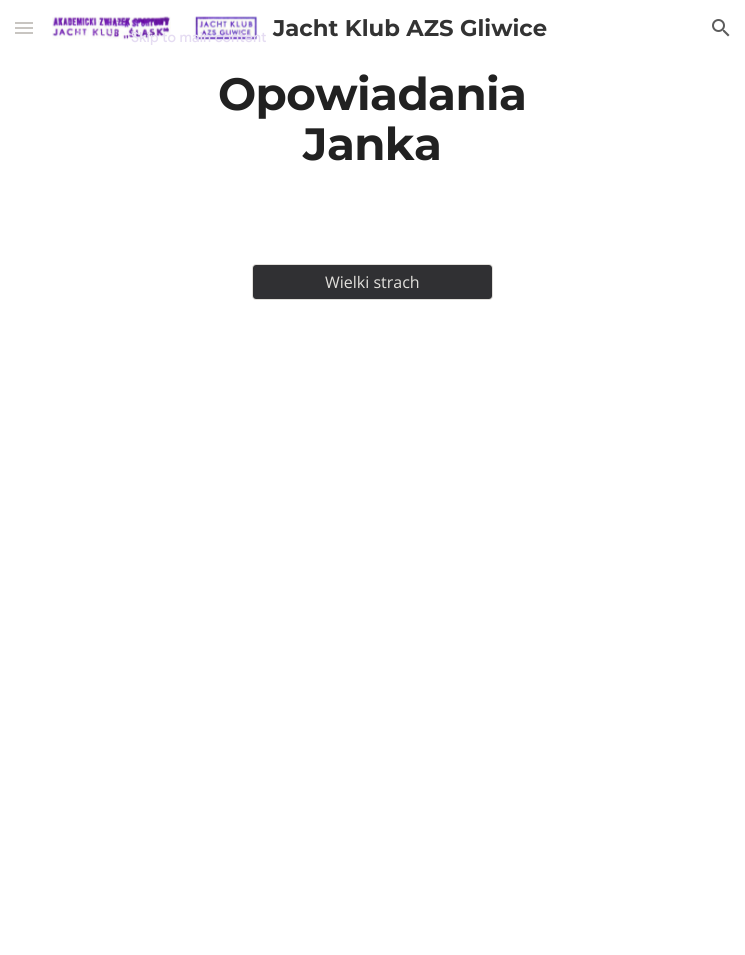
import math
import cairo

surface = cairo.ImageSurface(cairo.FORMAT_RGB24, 745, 955)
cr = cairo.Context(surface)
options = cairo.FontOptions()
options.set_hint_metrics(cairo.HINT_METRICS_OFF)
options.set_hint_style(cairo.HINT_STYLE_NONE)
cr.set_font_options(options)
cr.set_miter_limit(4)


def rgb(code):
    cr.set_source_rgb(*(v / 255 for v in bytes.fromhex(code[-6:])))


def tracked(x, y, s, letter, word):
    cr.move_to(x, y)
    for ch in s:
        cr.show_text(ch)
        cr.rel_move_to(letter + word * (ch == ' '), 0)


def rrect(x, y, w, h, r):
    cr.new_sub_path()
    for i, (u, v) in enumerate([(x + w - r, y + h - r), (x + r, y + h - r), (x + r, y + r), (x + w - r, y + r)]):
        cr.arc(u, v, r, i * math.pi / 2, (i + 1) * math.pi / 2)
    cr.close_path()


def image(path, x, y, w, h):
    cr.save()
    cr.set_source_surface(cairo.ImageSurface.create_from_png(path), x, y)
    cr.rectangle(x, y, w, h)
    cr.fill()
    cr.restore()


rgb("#ffffff")
cr.paint()
for x, y, w, h, color in [
    (15, 22, 18, 2, "#c8c5c1"),
    (15, 27, 18, 2, "#c8c5c1"),
    (15, 32, 18, 2, "#c8c5c1"),
]:
    rgb(color)
    cr.rectangle(x, y, w, h)
    cr.fill()
image("img/1.png", 52, 16, 206, 24)
image("img/2.png", 712, 19, 18, 18)
rrect(252.5, 264.5, 240, 35, 3.5)
rgb("#e1dfdb")
cr.set_line_width(1)
cr.stroke()
rgb("#303033")
rrect(253, 265, 239, 34, 3)
cr.fill()
cr.select_font_face("Google Sans Medium")
cr.set_font_size(14)
rgb("#e5dcf2")
tracked(131, 42, "Skip to main content", 0.1, 0)
cr.select_font_face("Montserrat", cairo.FONT_SLANT_NORMAL, cairo.FONT_WEIGHT_BOLD)
cr.set_font_size(22.75)
rgb("#333333")
cr.move_to(273, 36)
cr.show_text("Jacht Klub AZS Gliwice")
cr.set_font_size(45.25)
rgb("#212121")
tracked(218, 110, "Opowiadania", -0.6, 0)
tracked(303, 160, "Janka", -0.6, 0)
cr.select_font_face("Open Sans")
cr.set_font_size(16)
rgb("#e1dfdb")
cr.move_to(325, 288)
cr.show_text("Wielki strach")
surface.write_to_png("page.png")
